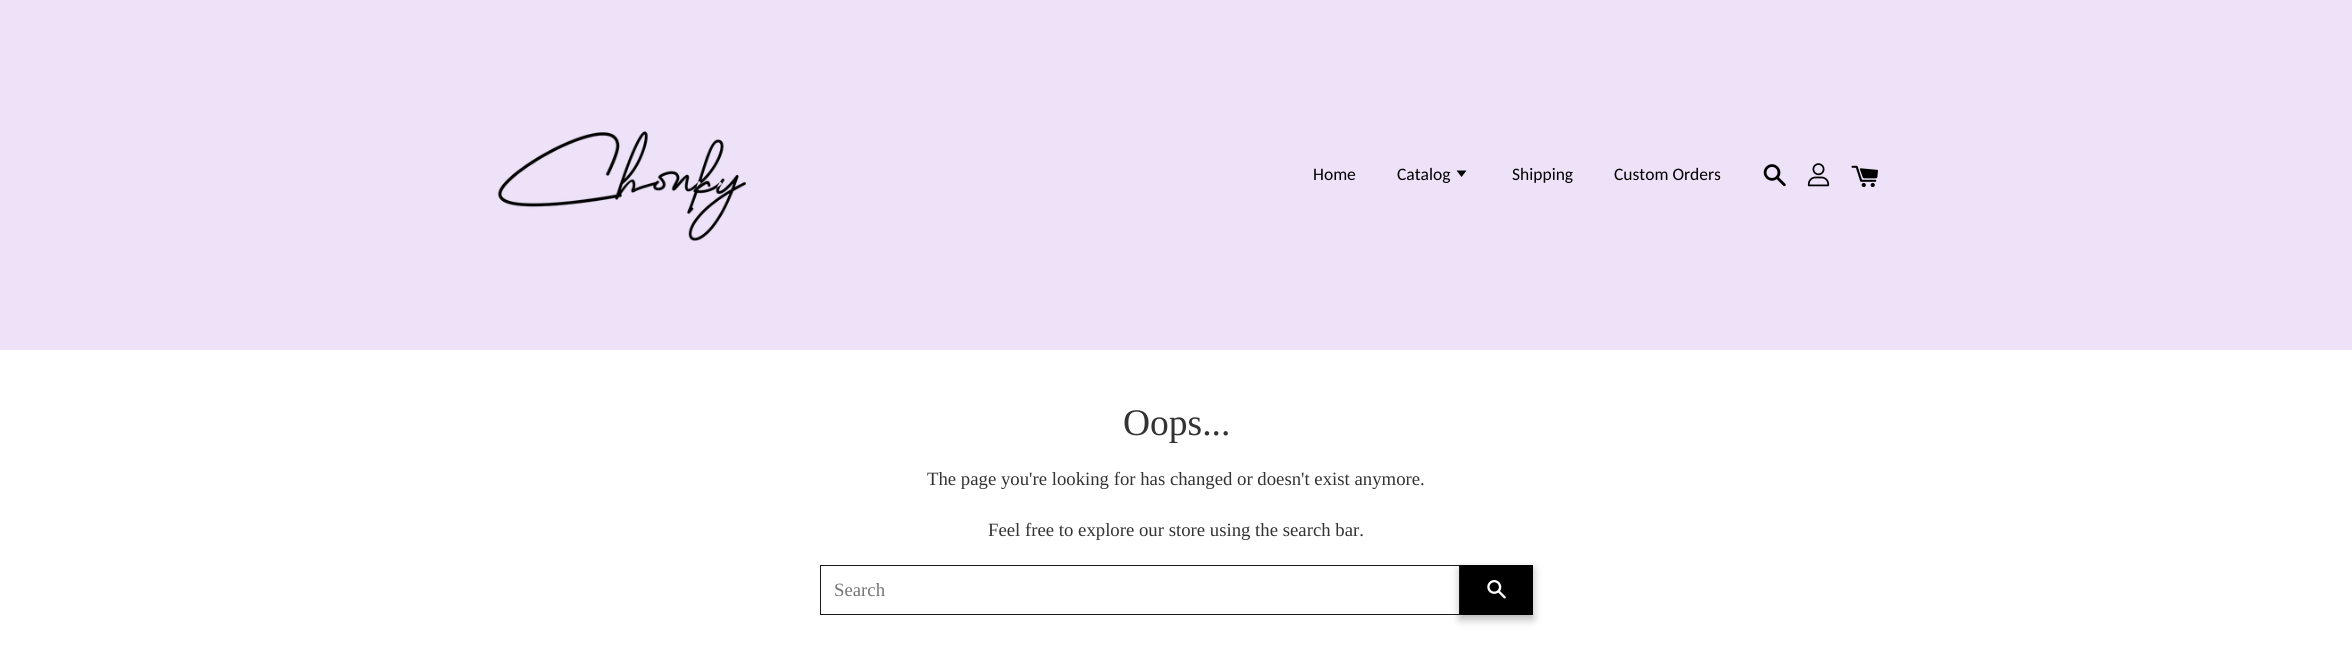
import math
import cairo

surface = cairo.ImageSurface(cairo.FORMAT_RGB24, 2352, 653)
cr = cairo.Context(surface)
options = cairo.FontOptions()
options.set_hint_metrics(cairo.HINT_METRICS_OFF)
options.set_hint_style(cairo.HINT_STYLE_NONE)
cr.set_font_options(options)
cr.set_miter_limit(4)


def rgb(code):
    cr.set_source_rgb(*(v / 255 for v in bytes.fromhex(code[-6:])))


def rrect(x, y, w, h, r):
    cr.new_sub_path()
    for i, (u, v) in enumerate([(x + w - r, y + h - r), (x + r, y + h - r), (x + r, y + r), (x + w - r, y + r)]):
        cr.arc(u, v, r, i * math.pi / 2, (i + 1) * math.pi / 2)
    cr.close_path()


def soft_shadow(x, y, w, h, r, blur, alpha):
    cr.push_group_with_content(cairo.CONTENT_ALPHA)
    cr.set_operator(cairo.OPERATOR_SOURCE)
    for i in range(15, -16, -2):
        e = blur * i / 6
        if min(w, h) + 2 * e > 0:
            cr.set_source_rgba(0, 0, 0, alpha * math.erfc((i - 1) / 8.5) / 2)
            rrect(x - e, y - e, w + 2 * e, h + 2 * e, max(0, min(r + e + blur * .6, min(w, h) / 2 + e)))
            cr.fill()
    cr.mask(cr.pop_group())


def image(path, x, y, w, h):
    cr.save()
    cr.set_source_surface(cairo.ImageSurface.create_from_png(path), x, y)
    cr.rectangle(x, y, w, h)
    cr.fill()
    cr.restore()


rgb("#ffffff")
cr.paint()
rgb("#ede2f8")
cr.rectangle(0, 0, 2352, 350)
cr.fill()
image("img/1.png", 497, 131, 249, 110)
rgb("#000000")
cr.new_path()
cr.move_to(1456.5, 170.5)
cr.line_to(1461.5, 177)
cr.line_to(1466.5, 170.5)
cr.close_path()
cr.fill()
image("img/2.png", 1763, 164, 23, 23)
image("img/3.png", 1807, 163, 23, 24)
image("img/4.png", 1851, 165, 27, 23)
cr.rectangle(820.5, 565.5, 639, 49)
rgb("#1a1a1a")
cr.set_line_width(1)
cr.stroke()
rgb("#000000")
soft_shadow(1460, 569, 73, 50, 0, 4.5, 0.3)
rgb("#000000")
cr.rectangle(1460, 565, 73, 50)
cr.fill()
image("img/5.png", 1487, 580, 19, 19)
cr.select_font_face("Carlito")
cr.set_font_size(17.5)
for x, y, s in [
    (1313, 180, "Home"),
    (1397, 180, "Catalog"),
    (1512, 180, "Shipping"),
    (1614, 180, "Custom Orders"),
]:
    cr.move_to(x, y)
    cr.show_text(s)
cr.select_font_face("Liberation Serif")
cr.set_font_size(37.5)
rgb("#333333")
cr.move_to(1123, 435)
cr.show_text("Oops...")
cr.set_font_size(18.75)
cr.move_to(927, 485)
cr.show_text("The page you're looking for has changed or doesn't exist anymore.")
cr.move_to(988, 536)
cr.show_text("Feel free to explore our store using the search bar.")
rgb("#757575")
cr.move_to(834, 596)
cr.show_text("Search")
surface.write_to_png("page.png")
